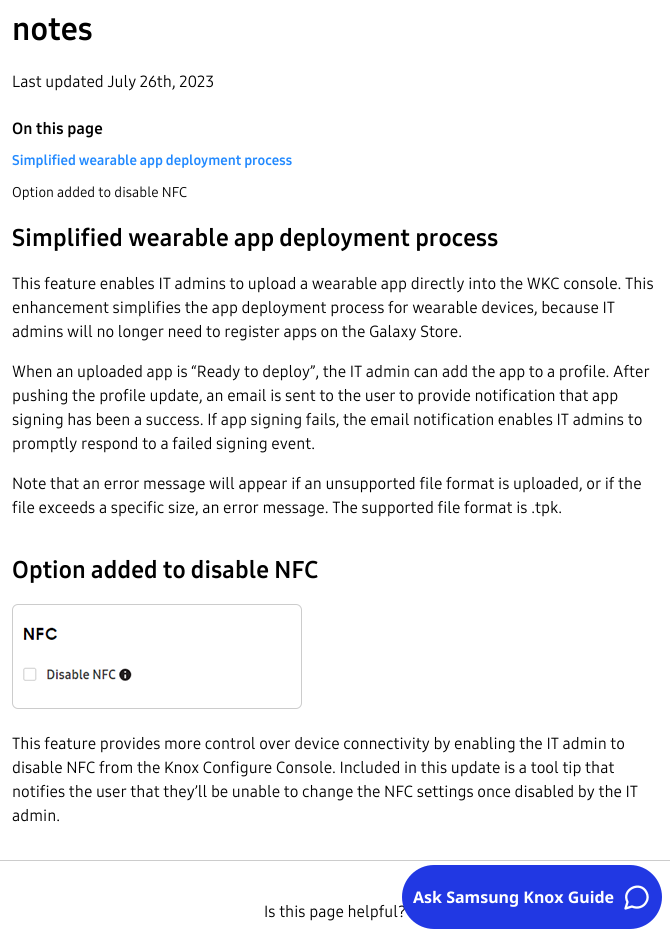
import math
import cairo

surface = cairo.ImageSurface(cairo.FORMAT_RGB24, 670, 932)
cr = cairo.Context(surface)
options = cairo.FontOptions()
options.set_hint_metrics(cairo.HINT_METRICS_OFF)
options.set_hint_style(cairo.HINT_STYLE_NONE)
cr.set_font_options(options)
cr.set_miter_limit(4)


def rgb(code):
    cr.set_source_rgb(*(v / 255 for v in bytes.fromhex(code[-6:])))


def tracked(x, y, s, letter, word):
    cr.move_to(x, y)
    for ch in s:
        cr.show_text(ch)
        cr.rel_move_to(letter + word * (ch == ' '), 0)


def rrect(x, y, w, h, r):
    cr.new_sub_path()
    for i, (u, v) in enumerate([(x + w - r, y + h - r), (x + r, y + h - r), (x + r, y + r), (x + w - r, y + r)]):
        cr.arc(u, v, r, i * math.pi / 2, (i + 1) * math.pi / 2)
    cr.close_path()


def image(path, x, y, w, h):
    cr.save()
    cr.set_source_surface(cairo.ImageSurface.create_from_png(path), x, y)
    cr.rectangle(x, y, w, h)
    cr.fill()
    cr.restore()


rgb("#ffffff")
cr.paint()
rrect(12.5, 604.5, 289, 104, 5.5)
rgb("#cccccc")
cr.set_line_width(1)
cr.stroke()
image("img/1.png", 23, 627, 109, 54)
cr.rectangle(0, 860, 670, 1)
cr.fill()
cr.select_font_face("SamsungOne", cairo.FONT_SLANT_NORMAL, cairo.FONT_WEIGHT_BOLD)
cr.set_font_size(32)
rgb("#000000")
tracked(12, 40, "notes", 0.15, 0)
cr.select_font_face("SamsungOne")
cr.set_font_size(16)
cr.move_to(12, 87)
cr.show_text("Last updated July 26th, 2023")
cr.select_font_face("SamsungOne", cairo.FONT_SLANT_NORMAL, cairo.FONT_WEIGHT_BOLD)
tracked(12, 134, "On this page", 0.15, 0)
cr.set_font_size(14)
rgb("#2189ff")
cr.move_to(12, 165)
cr.show_text("Simplified wearable app deployment process")
cr.select_font_face("SamsungOne")
rgb("#000000")
cr.move_to(12, 197)
cr.show_text("Option added to disable NFC")
cr.select_font_face("SamsungOne", cairo.FONT_SLANT_NORMAL, cairo.FONT_WEIGHT_BOLD)
cr.set_font_size(24)
tracked(12, 246, "Simplified wearable app deployment process", 0.15, 0)
cr.select_font_face("SamsungOne")
cr.set_font_size(16)
for x, y, s in [
    (12, 289, "This feature enables IT admins to upload a wearable app directly into the WKC console. This"),
    (12, 313, "enhancement simplifies the app deployment process for wearable devices, because IT"),
    (12, 337, "admins will no longer need to register apps on the Galaxy Store."),
    (12, 377, "When an uploaded app is “Ready to deploy”, the IT admin can add the app to a profile. After"),
    (12, 401, "pushing the profile update, an email is sent to the user to provide notification that app"),
    (12, 425, "signing has been a success. If app signing fails, the email notification enables IT admins to"),
    (12, 449, "promptly respond to a failed signing event."),
    (12, 489, "Note that an error message will appear if an unsupported file format is uploaded, or if the"),
    (12, 513, "file exceeds a specific size, an error message. The supported file format is .tpk."),
]:
    cr.move_to(x, y)
    cr.show_text(s)
cr.select_font_face("SamsungOne", cairo.FONT_SLANT_NORMAL, cairo.FONT_WEIGHT_BOLD)
cr.set_font_size(24)
tracked(12, 578, "Option added to disable NFC", 0.15, 0)
cr.select_font_face("SamsungOne")
cr.set_font_size(16)
for x, y, s in [
    (12, 749, "This feature provides more control over device connectivity by enabling the IT admin to"),
    (12, 773, "disable NFC from the Knox Configure Console. Included in this update is a tool tip that"),
    (12, 797, "notifies the user that they’ll be unable to change the NFC settings once disabled by the IT"),
    (12, 821, "admin."),
    (264, 917, "Is this page helpful?"),
]:
    cr.move_to(x, y)
    cr.show_text(s)
rgb("#2138e3")
rrect(402, 865, 260, 64, 32)
cr.fill()
cr.select_font_face("Noto Sans", cairo.FONT_SLANT_NORMAL, cairo.FONT_WEIGHT_BOLD)
rgb("#ffffff")
cr.move_to(413, 903)
cr.show_text("Ask Samsung Knox Guide")
cr.new_path()
cr.move_to(632, 906.5)
cr.curve_to(637.5, 909, 644, 907, 646.5, 901.5)
cr.curve_to(648, 899, 648, 895.5, 646.5, 892.5)
cr.curve_to(640.5, 880, 621, 889.5, 627.5, 902)
cr.line_to(625.5, 908.5)
cr.close_path()
cr.set_line_width(2.3)
cr.set_line_cap(cairo.LINE_CAP_ROUND)
cr.set_line_join(cairo.LINE_JOIN_ROUND)
cr.stroke()
surface.write_to_png("page.png")
